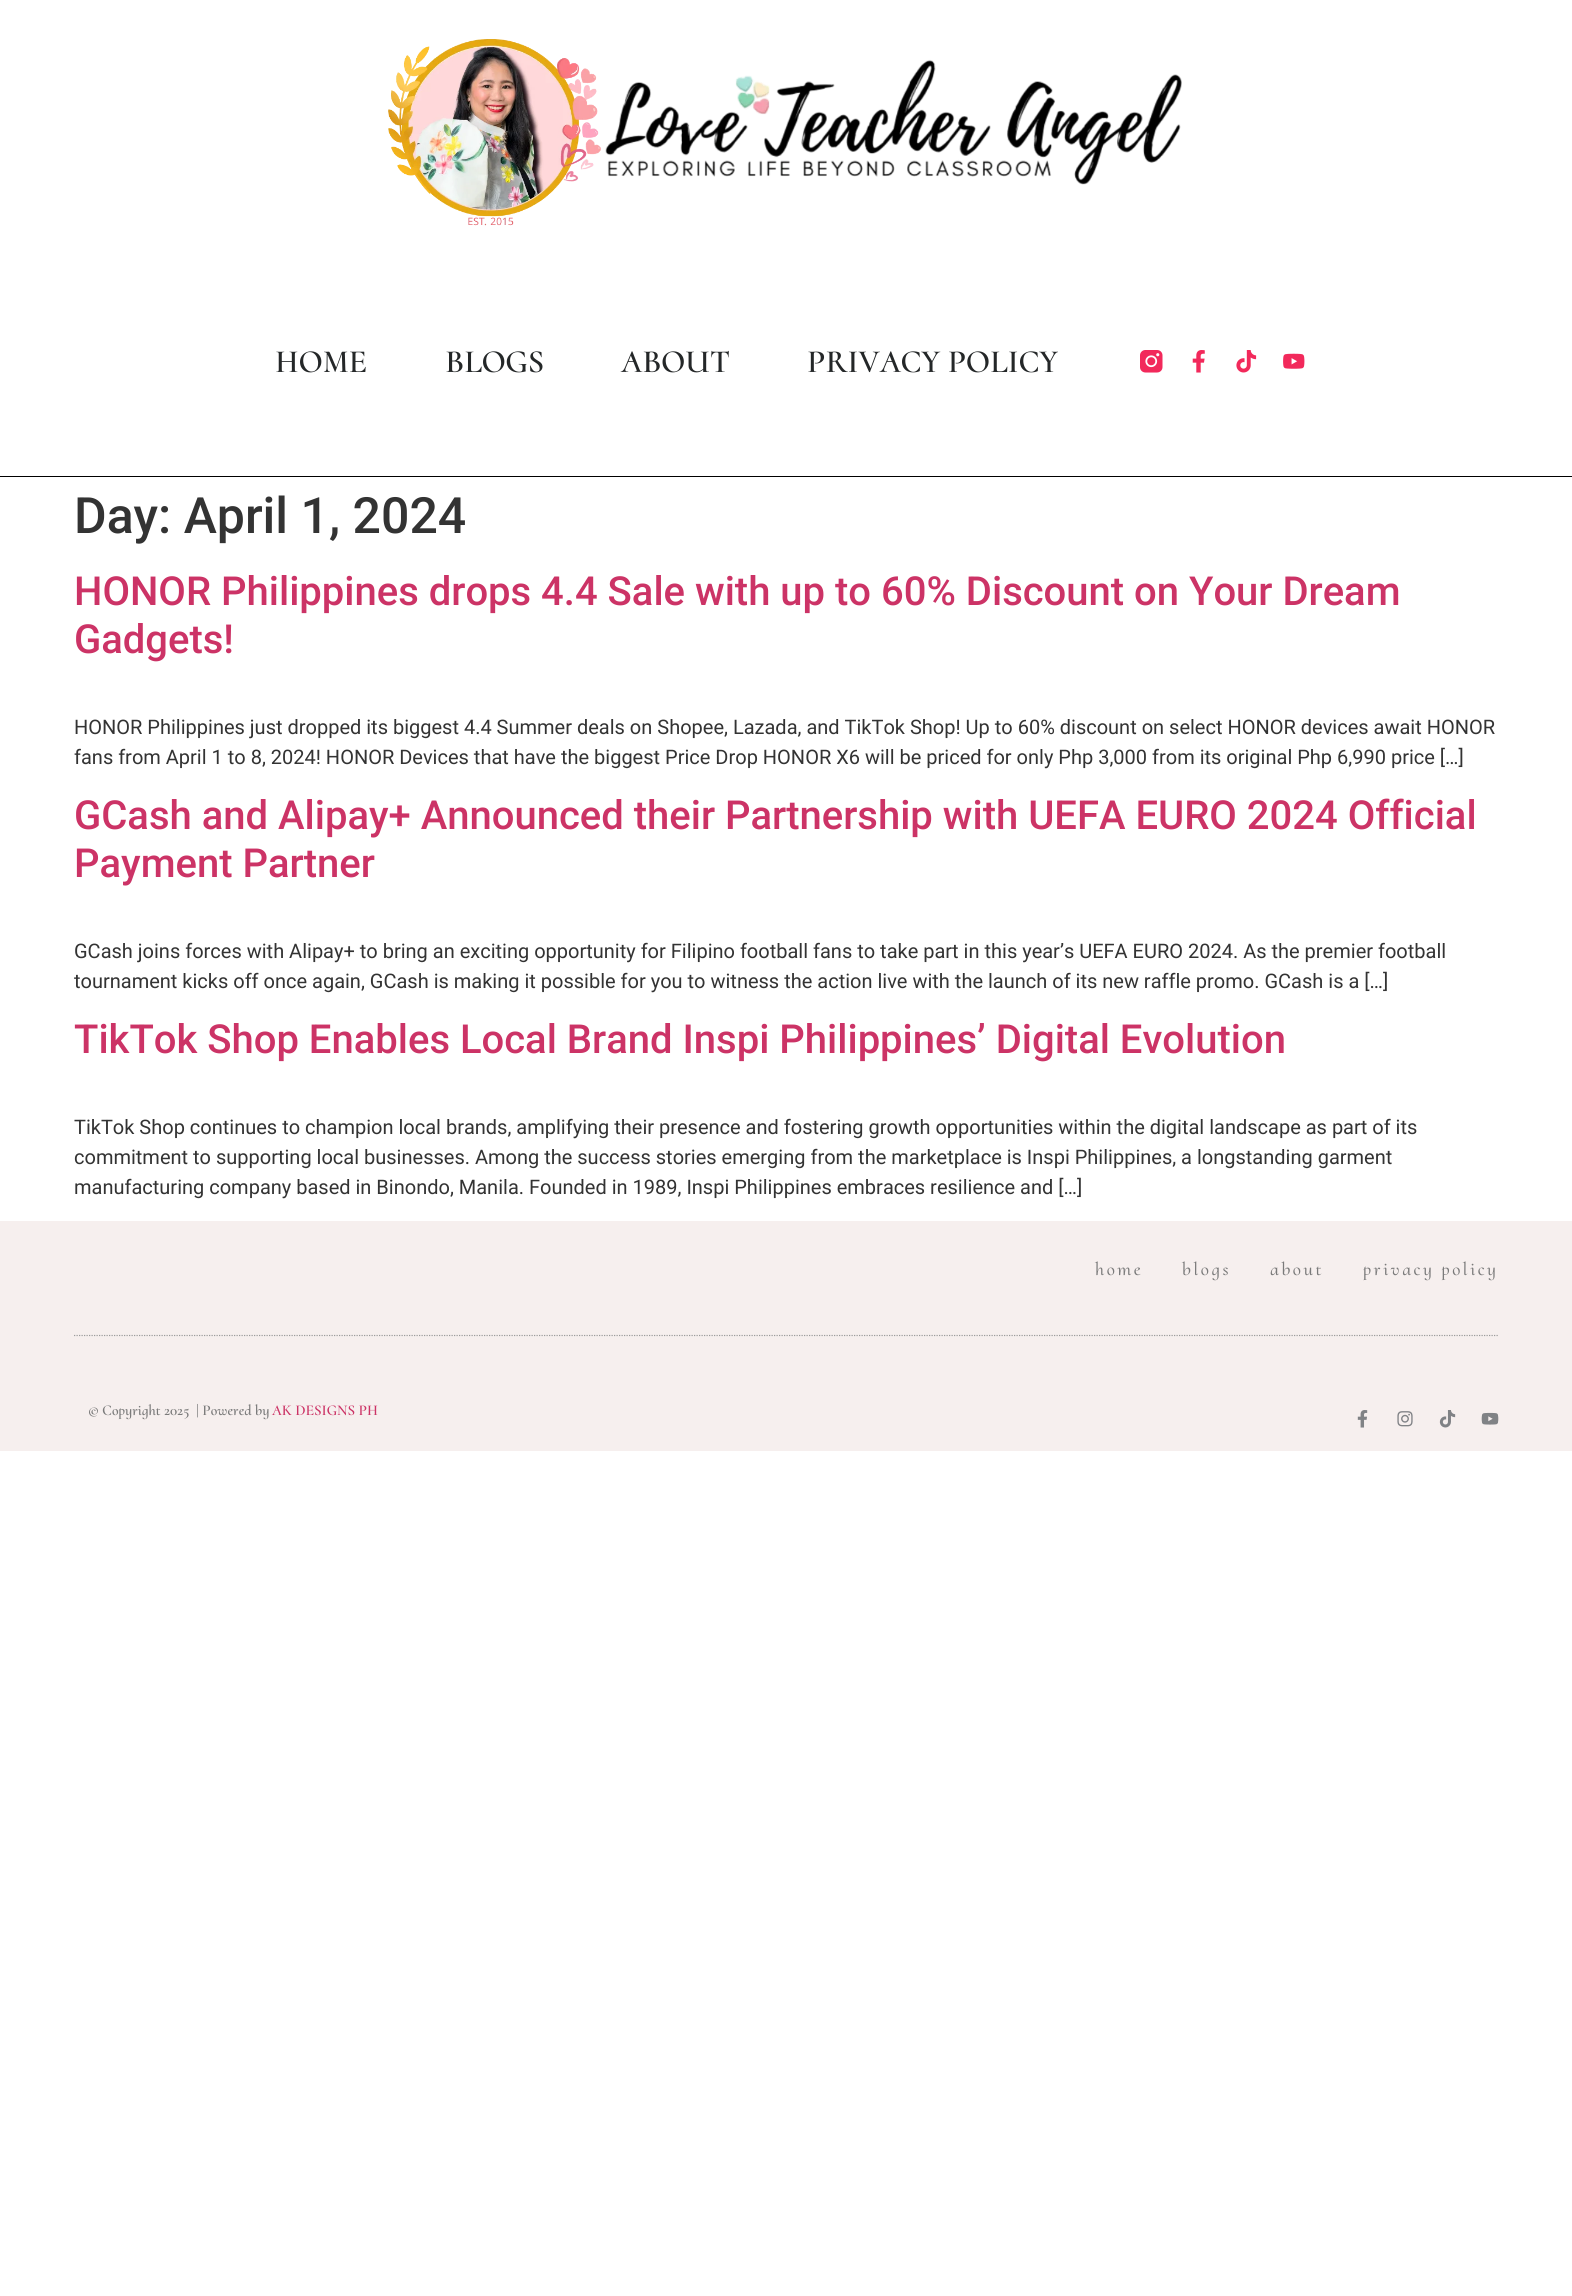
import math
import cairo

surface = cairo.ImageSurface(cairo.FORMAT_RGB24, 1572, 2296)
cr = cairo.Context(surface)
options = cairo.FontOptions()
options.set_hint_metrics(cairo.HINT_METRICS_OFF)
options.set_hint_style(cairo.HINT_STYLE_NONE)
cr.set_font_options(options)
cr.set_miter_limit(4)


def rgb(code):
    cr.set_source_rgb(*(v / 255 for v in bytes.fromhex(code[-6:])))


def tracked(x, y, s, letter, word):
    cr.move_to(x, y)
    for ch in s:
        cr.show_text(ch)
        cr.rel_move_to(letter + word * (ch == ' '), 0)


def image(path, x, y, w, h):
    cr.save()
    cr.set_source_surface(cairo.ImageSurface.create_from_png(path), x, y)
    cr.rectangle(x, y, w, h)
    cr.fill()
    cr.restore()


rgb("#ffffff")
cr.paint()
image("img/1.png", 388, 39, 794, 187)
rgb("#000000")
cr.rectangle(0, 476, 1572, 1)
cr.fill()
image("img/2.png", 1140, 350, 23, 23)
image("img/3.png", 1192, 350, 13, 23)
image("img/4.png", 1236, 350, 21, 23)
image("img/5.png", 1283, 353, 22, 16)
rgb("#f6efee")
cr.rectangle(0, 1221, 1572, 230)
cr.fill()
cr.new_path()
cr.move_to(74, 1335.5)
cr.line_to(1499, 1335.5)
rgb("#9b9b9b")
cr.set_line_width(1.2)
cr.set_dash([1.25, 1.25])
cr.stroke()
image("img/6.png", 1357, 1410, 11, 18)
image("img/7.png", 1397, 1411, 16, 16)
image("img/8.png", 1439, 1410, 17, 18)
image("img/9.png", 1481, 1412, 18, 13)
cr.select_font_face("Cormorant Upright SemiBold")
cr.set_font_size(32.5)
rgb("#242728")
for x, y, s in [
    (275, 372, "HOME"),
    (445, 372, "BLOGS"),
    (621, 372, "ABOUT"),
    (807, 372, "PRIVACY POLICY"),
]:
    cr.move_to(x, y)
    cr.show_text(s)
cr.select_font_face("Roboto Medium")
cr.set_font_size(50)
rgb("#333333")
cr.move_to(74, 533)
cr.show_text("Day: April 1, 2024")
cr.set_font_size(40)
rgb("#cc3366")
cr.move_to(74, 605)
cr.show_text("HONOR Philippines drops 4.4 Sale with up to 60% Discount on Your Dream")
cr.move_to(74, 653)
cr.show_text("Gadgets!")
cr.select_font_face("Roboto")
cr.set_font_size(20)
rgb("#333333")
cr.move_to(74, 734)
cr.show_text("HONOR Philippines just dropped its biggest 4.4 Summer deals on Shopee, Lazada, and TikTok Shop! Up to 60% discount on select HONOR devices await HONOR")
cr.move_to(74, 764)
cr.show_text("fans from April 1 to 8, 2024! HONOR Devices that have the biggest Price Drop HONOR X6 will be priced for only Php 3,000 from its original Php 6,990 price […]")
cr.select_font_face("Roboto Medium")
cr.set_font_size(40)
rgb("#cc3366")
cr.move_to(74, 829)
cr.show_text("GCash and Alipay+ Announced their Partnership with UEFA EURO 2024 Official")
cr.move_to(74, 877)
cr.show_text("Payment Partner")
cr.select_font_face("Roboto")
cr.set_font_size(20)
rgb("#333333")
cr.move_to(74, 958)
cr.show_text("GCash joins forces with Alipay+ to bring an exciting opportunity for Filipino football fans to take part in this year’s UEFA EURO 2024. As the premier football")
cr.move_to(74, 988)
cr.show_text("tournament kicks off once again, GCash is making it possible for you to witness the action live with the launch of its new raffle promo. GCash is a […]")
cr.select_font_face("Roboto Medium")
cr.set_font_size(40)
rgb("#cc3366")
cr.move_to(74, 1053)
cr.show_text("TikTok Shop Enables Local Brand Inspi Philippines’ Digital Evolution")
cr.select_font_face("Roboto")
cr.set_font_size(20)
rgb("#333333")
for x, y, s in [
    (74, 1134, "TikTok Shop continues to champion local brands, amplifying their presence and fostering growth opportunities within the digital landscape as part of its"),
    (74, 1164, "commitment to supporting local businesses. Among the success stories emerging from the marketplace is Inspi Philippines, a longstanding garment"),
    (74, 1194, "manufacturing company based in Binondo, Manila. Founded in 1989, Inspi Philippines embraces resilience and […]"),
]:
    cr.move_to(x, y)
    cr.show_text(s)
cr.select_font_face("Cormorant Upright Medium")
cr.set_font_size(18.75)
rgb("#7a7a7a")
for x, y, s in [
    (1095, 1275, "home"),
    (1182, 1275, "blogs"),
    (1270, 1275, "about"),
    (1363, 1275, "privacy policy"),
]:
    tracked(x, y, s, 2.6, 0)
cr.select_font_face("Cormorant Upright SemiBold")
cr.set_font_size(15)
cr.move_to(88, 1415)
cr.show_text("© Copyright 2025  | Powered by")
rgb("#cc3366")
cr.move_to(272, 1415)
cr.show_text("AK DESIGNS PH")
surface.write_to_png("page.png")
